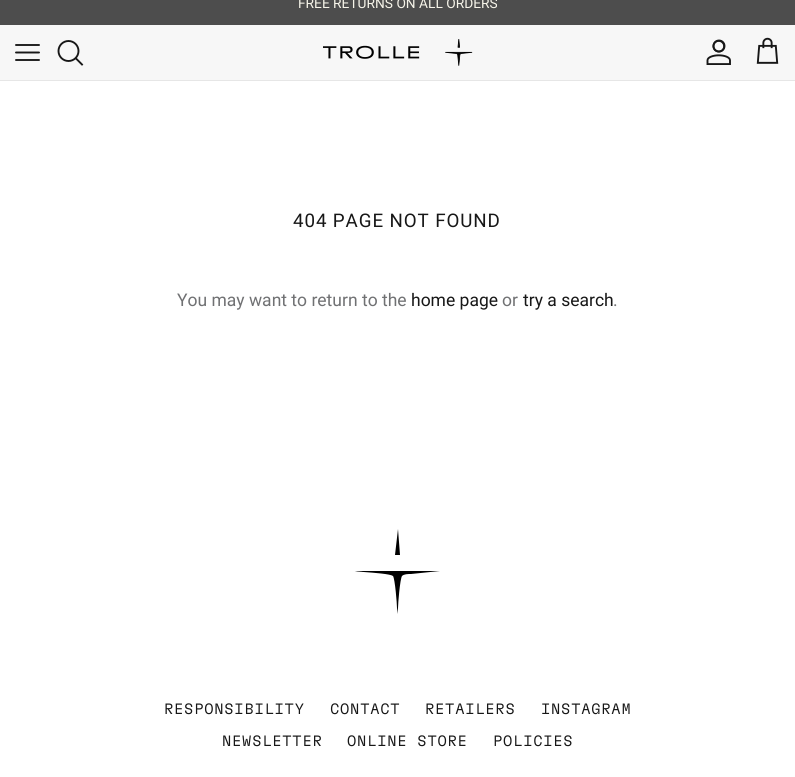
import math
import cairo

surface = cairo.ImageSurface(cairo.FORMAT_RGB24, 795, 777)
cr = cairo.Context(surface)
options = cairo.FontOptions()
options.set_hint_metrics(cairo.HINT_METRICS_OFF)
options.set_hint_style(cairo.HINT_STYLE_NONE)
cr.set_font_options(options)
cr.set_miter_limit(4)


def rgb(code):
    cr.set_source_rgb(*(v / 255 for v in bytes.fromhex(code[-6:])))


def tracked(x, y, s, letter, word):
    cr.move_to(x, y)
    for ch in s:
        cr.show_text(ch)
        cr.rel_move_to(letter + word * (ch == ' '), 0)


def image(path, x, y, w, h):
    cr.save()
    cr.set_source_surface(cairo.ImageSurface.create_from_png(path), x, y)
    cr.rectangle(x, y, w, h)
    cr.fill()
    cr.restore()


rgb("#ffffff")
cr.paint()
for x, y, w, h, color in [
    (0, 0, 795, 25, "#4d4d4d"),
    (0, 25, 795, 55, "#f7f7f7"),
    (0, 80, 795, 1, "#e6e6e6"),
]:
    rgb(color)
    cr.rectangle(x, y, w, h)
    cr.fill()
cr.new_path()
cr.move_to(16, 52.5)
cr.line_to(39, 52.5)
cr.move_to(16, 45)
cr.line_to(39, 45)
cr.move_to(16, 60)
cr.line_to(39, 60)
rgb("#171717")
cr.set_line_width(1.9)
cr.set_line_cap(cairo.LINE_CAP_ROUND)
cr.set_line_join(cairo.LINE_JOIN_ROUND)
cr.stroke()
cr.arc(68.5, 51, 10, 0, 2 * math.pi)
cr.set_line_cap(cairo.LINE_CAP_BUTT)
cr.set_line_join(cairo.LINE_JOIN_MITER)
cr.stroke()
cr.new_path()
cr.move_to(76, 58.5)
cr.line_to(82, 64.5)
cr.set_line_cap(cairo.LINE_CAP_SQUARE)
cr.stroke()
image("img/1.png", 323, 39, 150, 27)
image("img/2.png", 706, 39, 25, 26)
image("img/3.png", 756, 37, 23, 27)
rgb("#000000")
cr.set_fill_rule(cairo.FILL_RULE_EVEN_ODD)
cr.new_path()
cr.move_to(440, 571)
cr.line_to(369, 571)
cr.curve_to(328, 571, 388, 572, 393, 576)
cr.curve_to(395, 579, 397, 604, 397, 608)
cr.line_to(397, 614)
cr.line_to(398, 608)
cr.curve_to(398, 604, 400, 579, 402, 576)
cr.curve_to(404, 574, 408, 574, 411, 574)
cr.line_to(440, 571)
cr.move_to(398, 529)
cr.line_to(395, 555)
cr.line_to(400, 555)
cr.line_to(398, 529)
cr.fill()
cr.select_font_face("Roboto")
cr.set_font_size(13.75)
rgb("#f6f4e9")
cr.move_to(298, 8)
cr.show_text("FREE RETURNS ON ALL ORDERS")
cr.set_font_size(18.75)
rgb("#171717")
tracked(293, 227, "404 PAGE NOT FOUND", 0.9, 0)
cr.set_font_size(17.5)
rgb("#707173")
cr.move_to(177, 306)
cr.show_text("You may want to return to the")
rgb("#171717")
cr.move_to(411, 306)
cr.show_text("home page")
rgb("#707173")
cr.move_to(502, 306)
cr.show_text("or")
rgb("#171717")
cr.move_to(523, 306)
cr.show_text("try a search")
rgb("#707173")
cr.move_to(613, 306)
cr.show_text(".")
cr.select_font_face("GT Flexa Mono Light")
cr.set_font_size(15)
rgb("#171717")
for x, y, s in [
    (164, 714, "RESPONSIBILITY"),
    (330, 714, "CONTACT"),
    (425, 714, "RETAILERS"),
    (541, 714, "INSTAGRAM"),
    (222, 746, "NEWSLETTER"),
    (347, 746, "ONLINE STORE"),
    (493, 746, "POLICIES"),
]:
    tracked(x, y, s, 0.75, 0)
surface.write_to_png("page.png")
